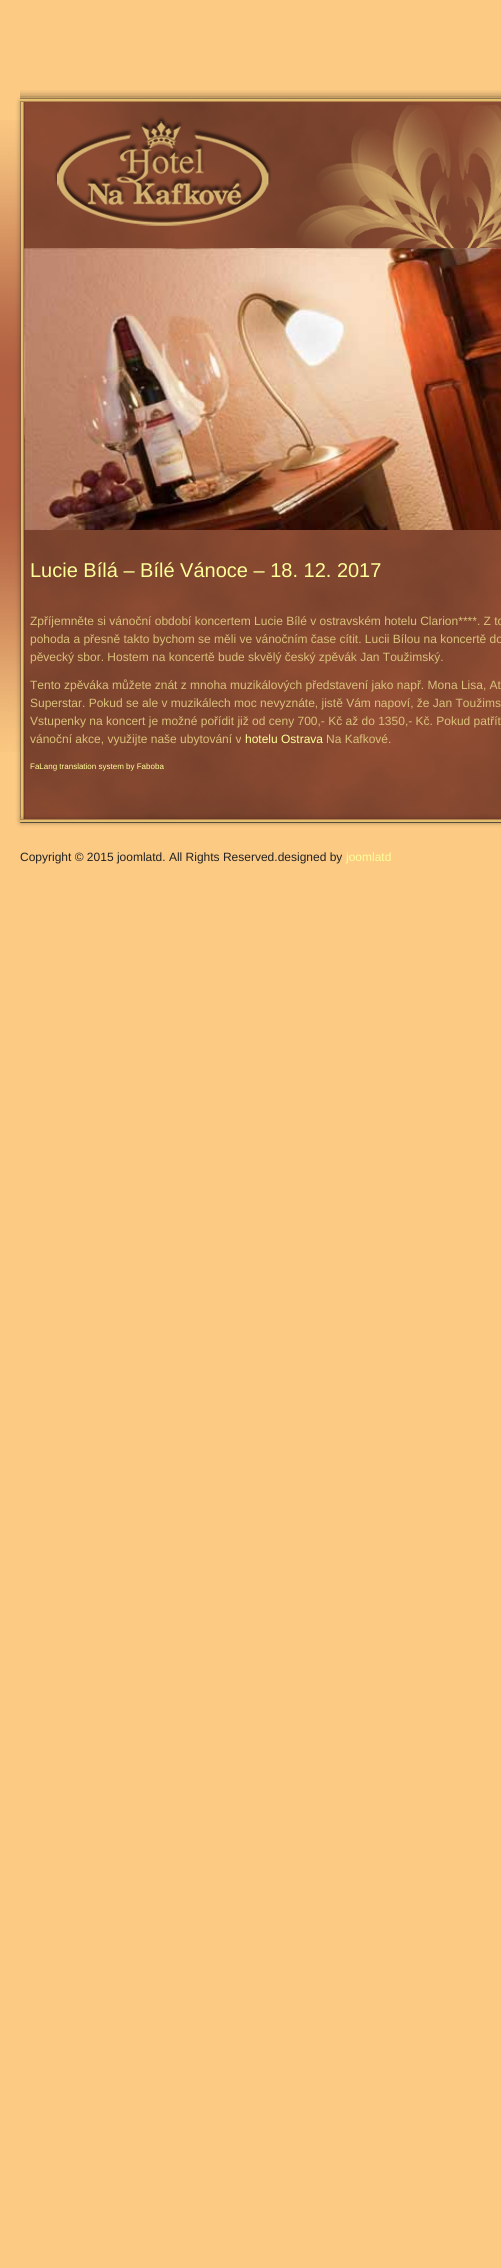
import math
import cairo

surface = cairo.ImageSurface(cairo.FORMAT_RGB24, 501, 2268)
cr = cairo.Context(surface)
options = cairo.FontOptions()
options.set_hint_metrics(cairo.HINT_METRICS_OFF)
options.set_hint_style(cairo.HINT_STYLE_NONE)
cr.set_font_options(options)
cr.set_miter_limit(4)


def rgb(code):
    cr.set_source_rgb(*(v / 255 for v in bytes.fromhex(code[-6:])))


def rrect(x, y, w, h, r):
    cr.new_sub_path()
    for i, (u, v) in enumerate([(x + w - r, y + h - r), (x + r, y + h - r), (x + r, y + r), (x + w - r, y + r)]):
        cr.arc(u, v, r, i * math.pi / 2, (i + 1) * math.pi / 2)
    cr.close_path()


def soft_shadow(x, y, w, h, r, blur, alpha):
    cr.push_group_with_content(cairo.CONTENT_ALPHA)
    cr.set_operator(cairo.OPERATOR_SOURCE)
    for i in range(15, -16, -2):
        e = blur * i / 6
        if min(w, h) + 2 * e > 0:
            cr.set_source_rgba(0, 0, 0, alpha * math.erfc((i - 1) / 8.5) / 2)
            rrect(x - e, y - e, w + 2 * e, h + 2 * e, max(0, min(r + e + blur * .6, min(w, h) / 2 + e)))
            cr.fill()
    cr.mask(cr.pop_group())


def image(path, x, y, w, h):
    cr.save()
    cr.set_source_surface(cairo.ImageSurface.create_from_png(path), x, y)
    cr.rectangle(x, y, w, h)
    cr.fill()
    cr.restore()


rgb("#fcca83")
cr.paint()
image("img/1.png", 0, 120, 23, 632)
cr.save()
cr.set_fill_rule(cairo.FILL_RULE_EVEN_ODD)
cr.new_path()
cr.move_to(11, 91)
cr.line_to(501, 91)
cr.line_to(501, 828)
cr.line_to(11, 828)
cr.close_path()
cr.move_to(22, 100)
cr.line_to(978, 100)
cr.curve_to(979, 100, 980, 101, 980, 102)
cr.line_to(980, 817)
cr.curve_to(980, 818, 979, 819, 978, 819)
cr.line_to(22, 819)
cr.curve_to(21, 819, 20, 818, 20, 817)
cr.line_to(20, 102)
cr.curve_to(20, 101, 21, 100, 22, 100)
cr.close_path()
cr.clip()
rgb("#000000")
soft_shadow(20, 100, 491, 719, 2, 2.5, 0.3)
cr.restore()
image("img/2.png", 20, 100, 481, 719)
image("img/3.png", 20, 90, 481, 12)
image("img/4.png", 54, 105, 447, 143)
image("img/5.png", 24, 248, 477, 282)
rgb("#000000")
soft_shadow(20, 819, 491, 4, 2, 2.5, 0.3)
rgb("#555555")
rrect(20, 819, 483, 4, 2)
cr.fill()
image("img/6.png", 20, 819, 481, 4)
cr.select_font_face("Liberation Sans")
cr.set_font_size(20)
rgb("#ffff99")
cr.move_to(30, 577)
cr.show_text("Lucie Bílá – Bílé Vánoce – 18. 12. 2017")
cr.set_font_size(12)
rgb("#dac079")
for x, y, s in [
    (30, 625, "Zpříjemněte si vánoční období koncertem Lucie Bílé v ostravském hotelu Clarion****. Z to"),
    (30, 643, "pohoda a přesně takto bychom se měli ve vánočním čase cítit. Lucii Bílou na koncertě do"),
    (30, 661, "pěvecký sbor. Hostem na koncertě bude skvělý český zpěvák Jan Toužimský."),
    (30, 689, "Tento zpěváka můžete znát z mnoha muzikálových představení jako např. Mona Lisa, Ať"),
    (30, 707, "Superstar. Pokud se ale v muzikálech moc nevyznáte, jistě Vám napoví, že Jan Toužims"),
    (30, 725, "Vstupenky na koncert je možné pořídit již od ceny 700,- Kč až do 1350,- Kč. Pokud patřít"),
    (30, 743, "vánoční akce, využijte naše ubytování v"),
]:
    cr.move_to(x, y)
    cr.show_text(s)
rgb("#ffff99")
cr.move_to(245, 743)
cr.show_text("hotelu Ostrava")
rgb("#dac079")
cr.move_to(326, 743)
cr.show_text("Na Kafkové.")
cr.set_font_size(8)
rgb("#ffff99")
cr.move_to(30, 769)
cr.show_text("FaLang translation system by Faboba")
cr.set_font_size(12)
rgb("#222222")
cr.move_to(20, 861)
cr.show_text("Copyright © 2015 joomlatd. All Rights Reserved.designed by")
rgb("#ffff99")
cr.move_to(346, 861)
cr.show_text("joomlatd")
surface.write_to_png("page.png")
